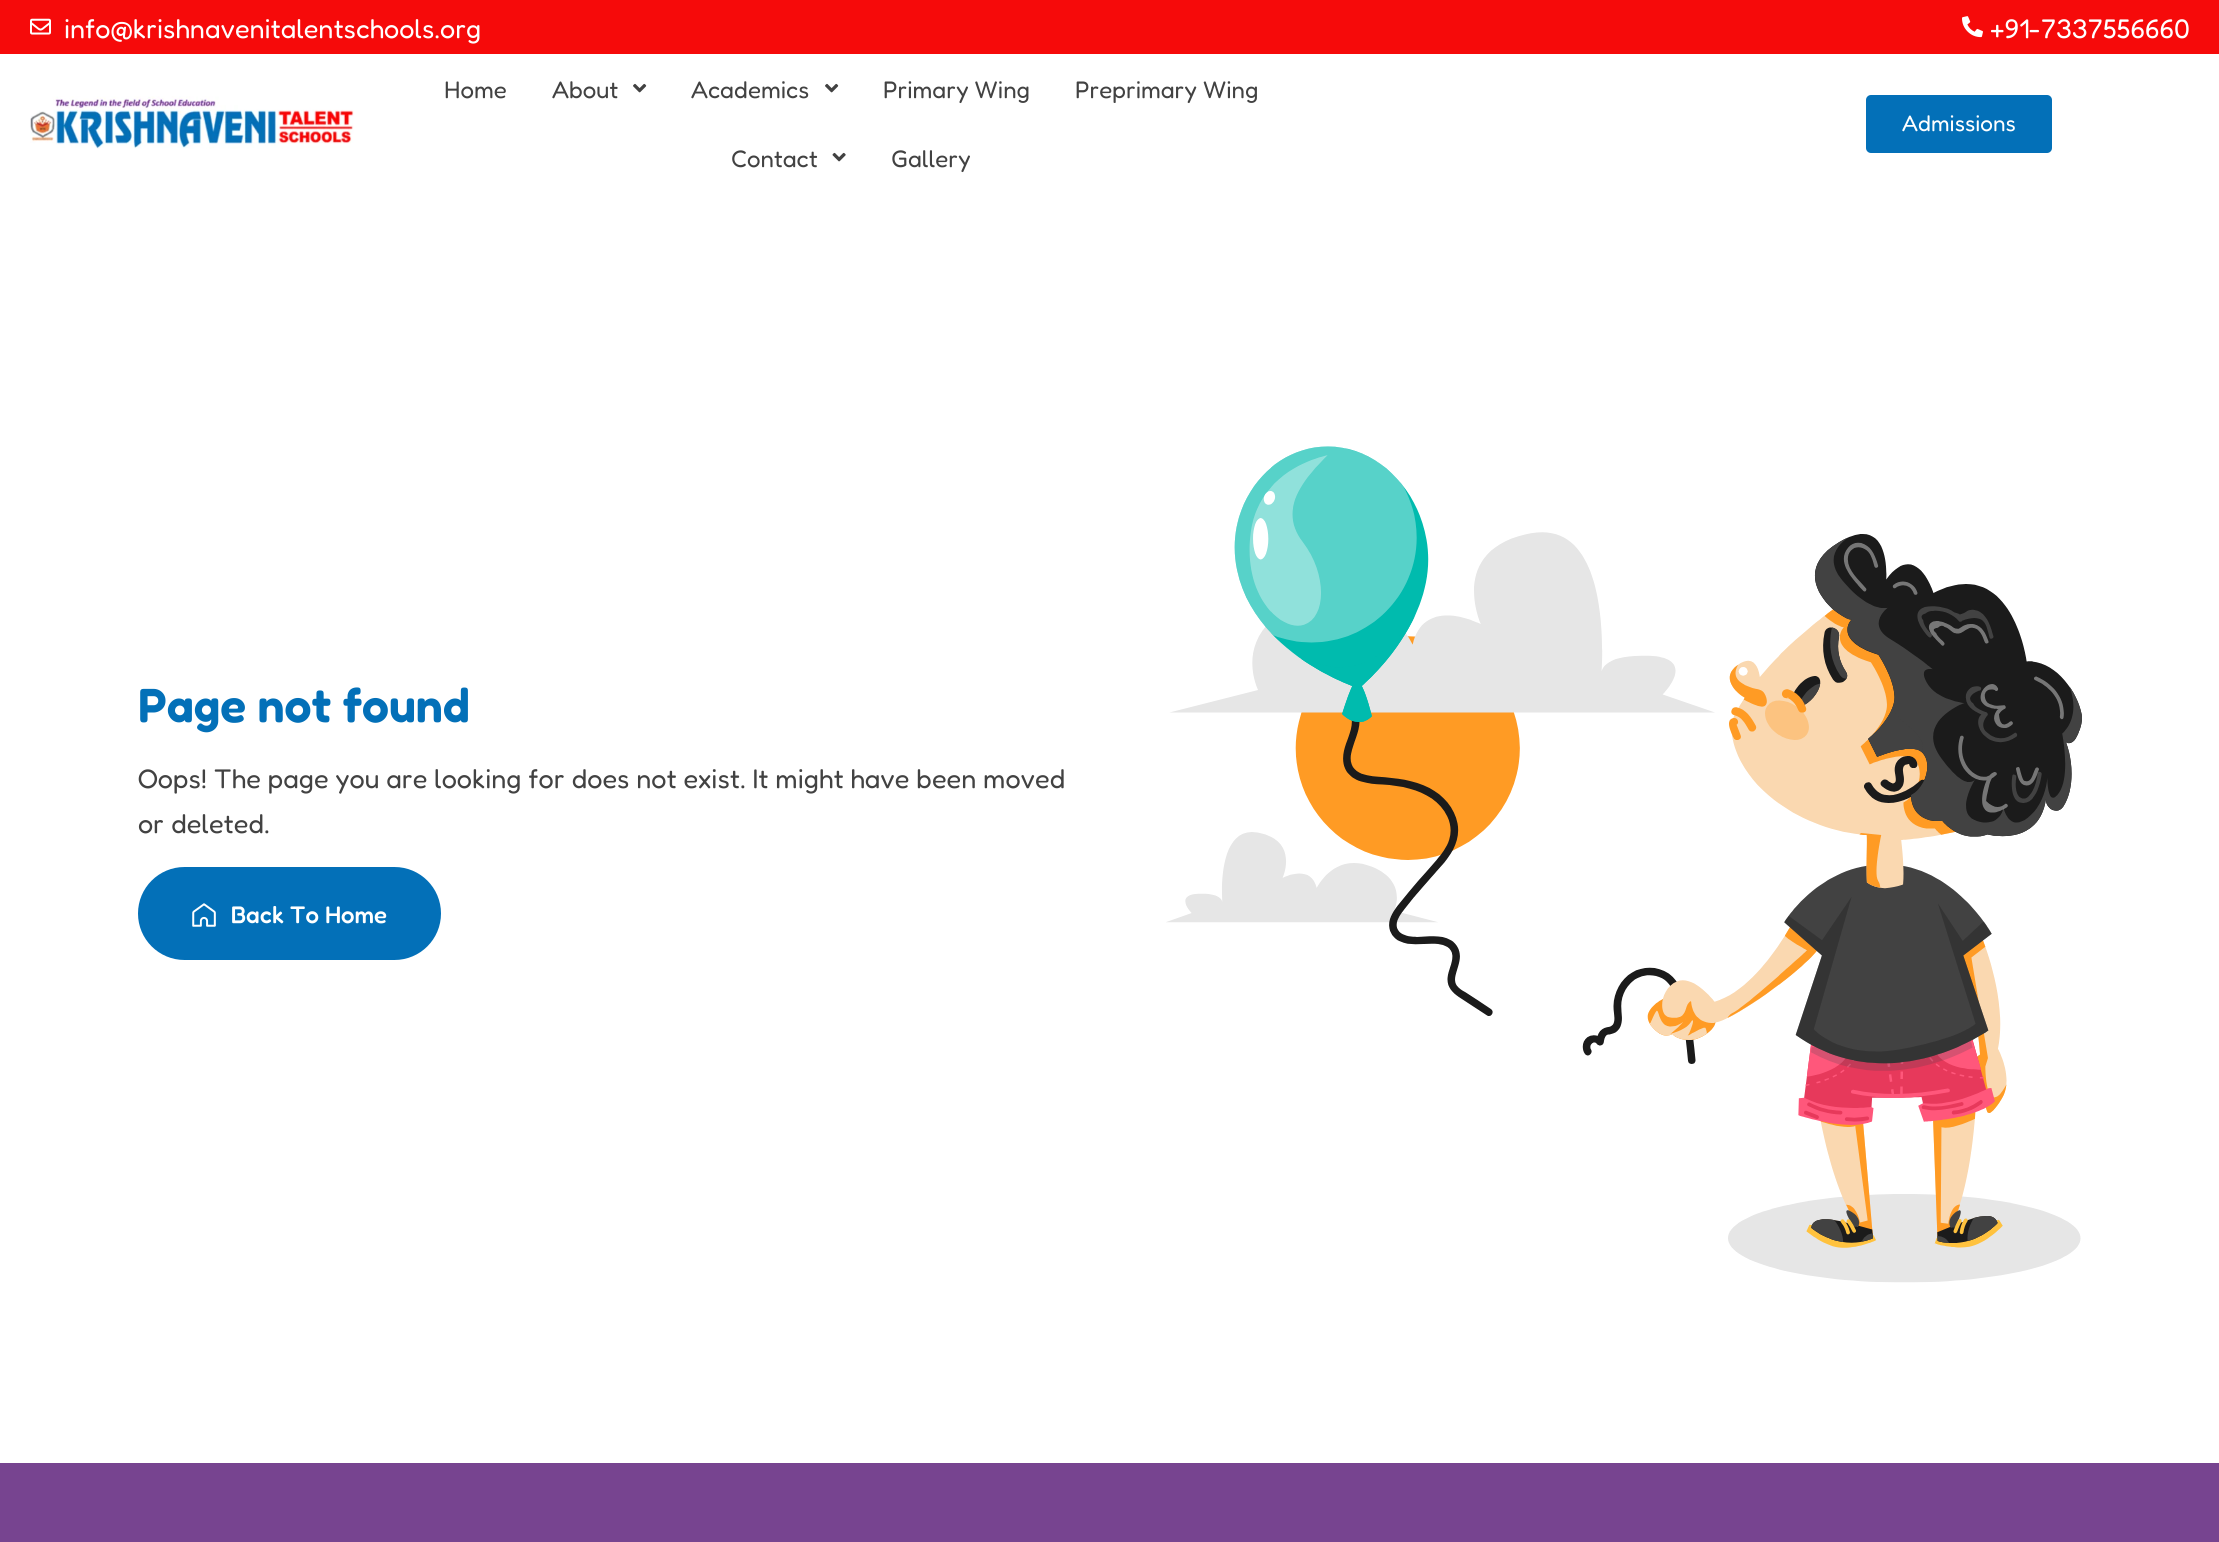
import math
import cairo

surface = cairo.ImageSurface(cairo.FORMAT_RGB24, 2219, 1542)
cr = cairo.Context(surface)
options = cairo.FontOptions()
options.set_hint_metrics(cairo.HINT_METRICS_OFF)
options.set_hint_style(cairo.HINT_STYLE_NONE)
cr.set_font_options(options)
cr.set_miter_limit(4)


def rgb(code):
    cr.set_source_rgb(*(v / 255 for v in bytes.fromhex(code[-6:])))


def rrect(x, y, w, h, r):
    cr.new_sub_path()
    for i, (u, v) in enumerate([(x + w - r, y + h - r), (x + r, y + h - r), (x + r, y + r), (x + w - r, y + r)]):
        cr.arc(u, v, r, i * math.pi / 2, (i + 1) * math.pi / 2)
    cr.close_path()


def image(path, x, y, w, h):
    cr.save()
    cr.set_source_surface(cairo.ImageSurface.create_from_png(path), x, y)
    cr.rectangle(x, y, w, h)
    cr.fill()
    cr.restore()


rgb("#ffffff")
cr.paint()
rgb("#f60a0a")
cr.rectangle(0, 0, 2219, 54)
cr.fill()
image("img/1.png", 30, 18, 21, 17)
image("img/2.png", 1962, 16, 21, 22)
image("img/3.png", 30, 96, 324, 53)
image("img/4.png", 633, 83, 14, 10)
image("img/4.png", 825, 83, 14, 10)
image("img/5.png", 832, 152, 14, 10)
rgb("#0370b8")
rrect(1866, 95, 186, 58, 5)
cr.fill()
rrect(138, 867, 303, 93, 46.5)
cr.fill()
image("img/6.png", 192, 903, 24, 24)
image("img/7.png", 1166, 446, 916, 837)
rgb("#774490")
cr.rectangle(0, 1463, 2219, 79)
cr.fill()
cr.select_font_face("Fredoka")
cr.set_font_size(27)
rgb("#ffffff")
cr.move_to(64, 38)
cr.show_text("info@krishnavenitalentschools.org")
cr.move_to(1990, 38)
cr.show_text("+91-7337556660")
cr.set_font_size(24)
rgb("#424242")
for x, y, s in [
    (444, 98, "Home"),
    (552, 98, "About"),
    (691, 98, "Academics"),
    (883, 98, "Primary Wing"),
    (1075, 98, "Preprimary Wing"),
    (731, 167, "Contact"),
    (891, 167, "Gallery"),
]:
    cr.move_to(x, y)
    cr.show_text(s)
cr.set_font_size(22.5)
rgb("#ffffff")
cr.move_to(1902, 131)
cr.show_text("Admissions")
cr.select_font_face("Fredoka SemiBold")
cr.set_font_size(48)
rgb("#0370b8")
cr.move_to(138, 722)
cr.show_text("Page not found")
cr.select_font_face("Fredoka")
cr.set_font_size(27)
rgb("#424242")
cr.move_to(138, 788)
cr.show_text("Oops! The page you are looking for does not exist. It might have been moved")
cr.move_to(138, 833)
cr.show_text("or deleted.")
cr.select_font_face("Fredoka Medium")
cr.set_font_size(24)
rgb("#ffffff")
cr.move_to(231, 923)
cr.show_text("Back To Home")
surface.write_to_png("page.png")
